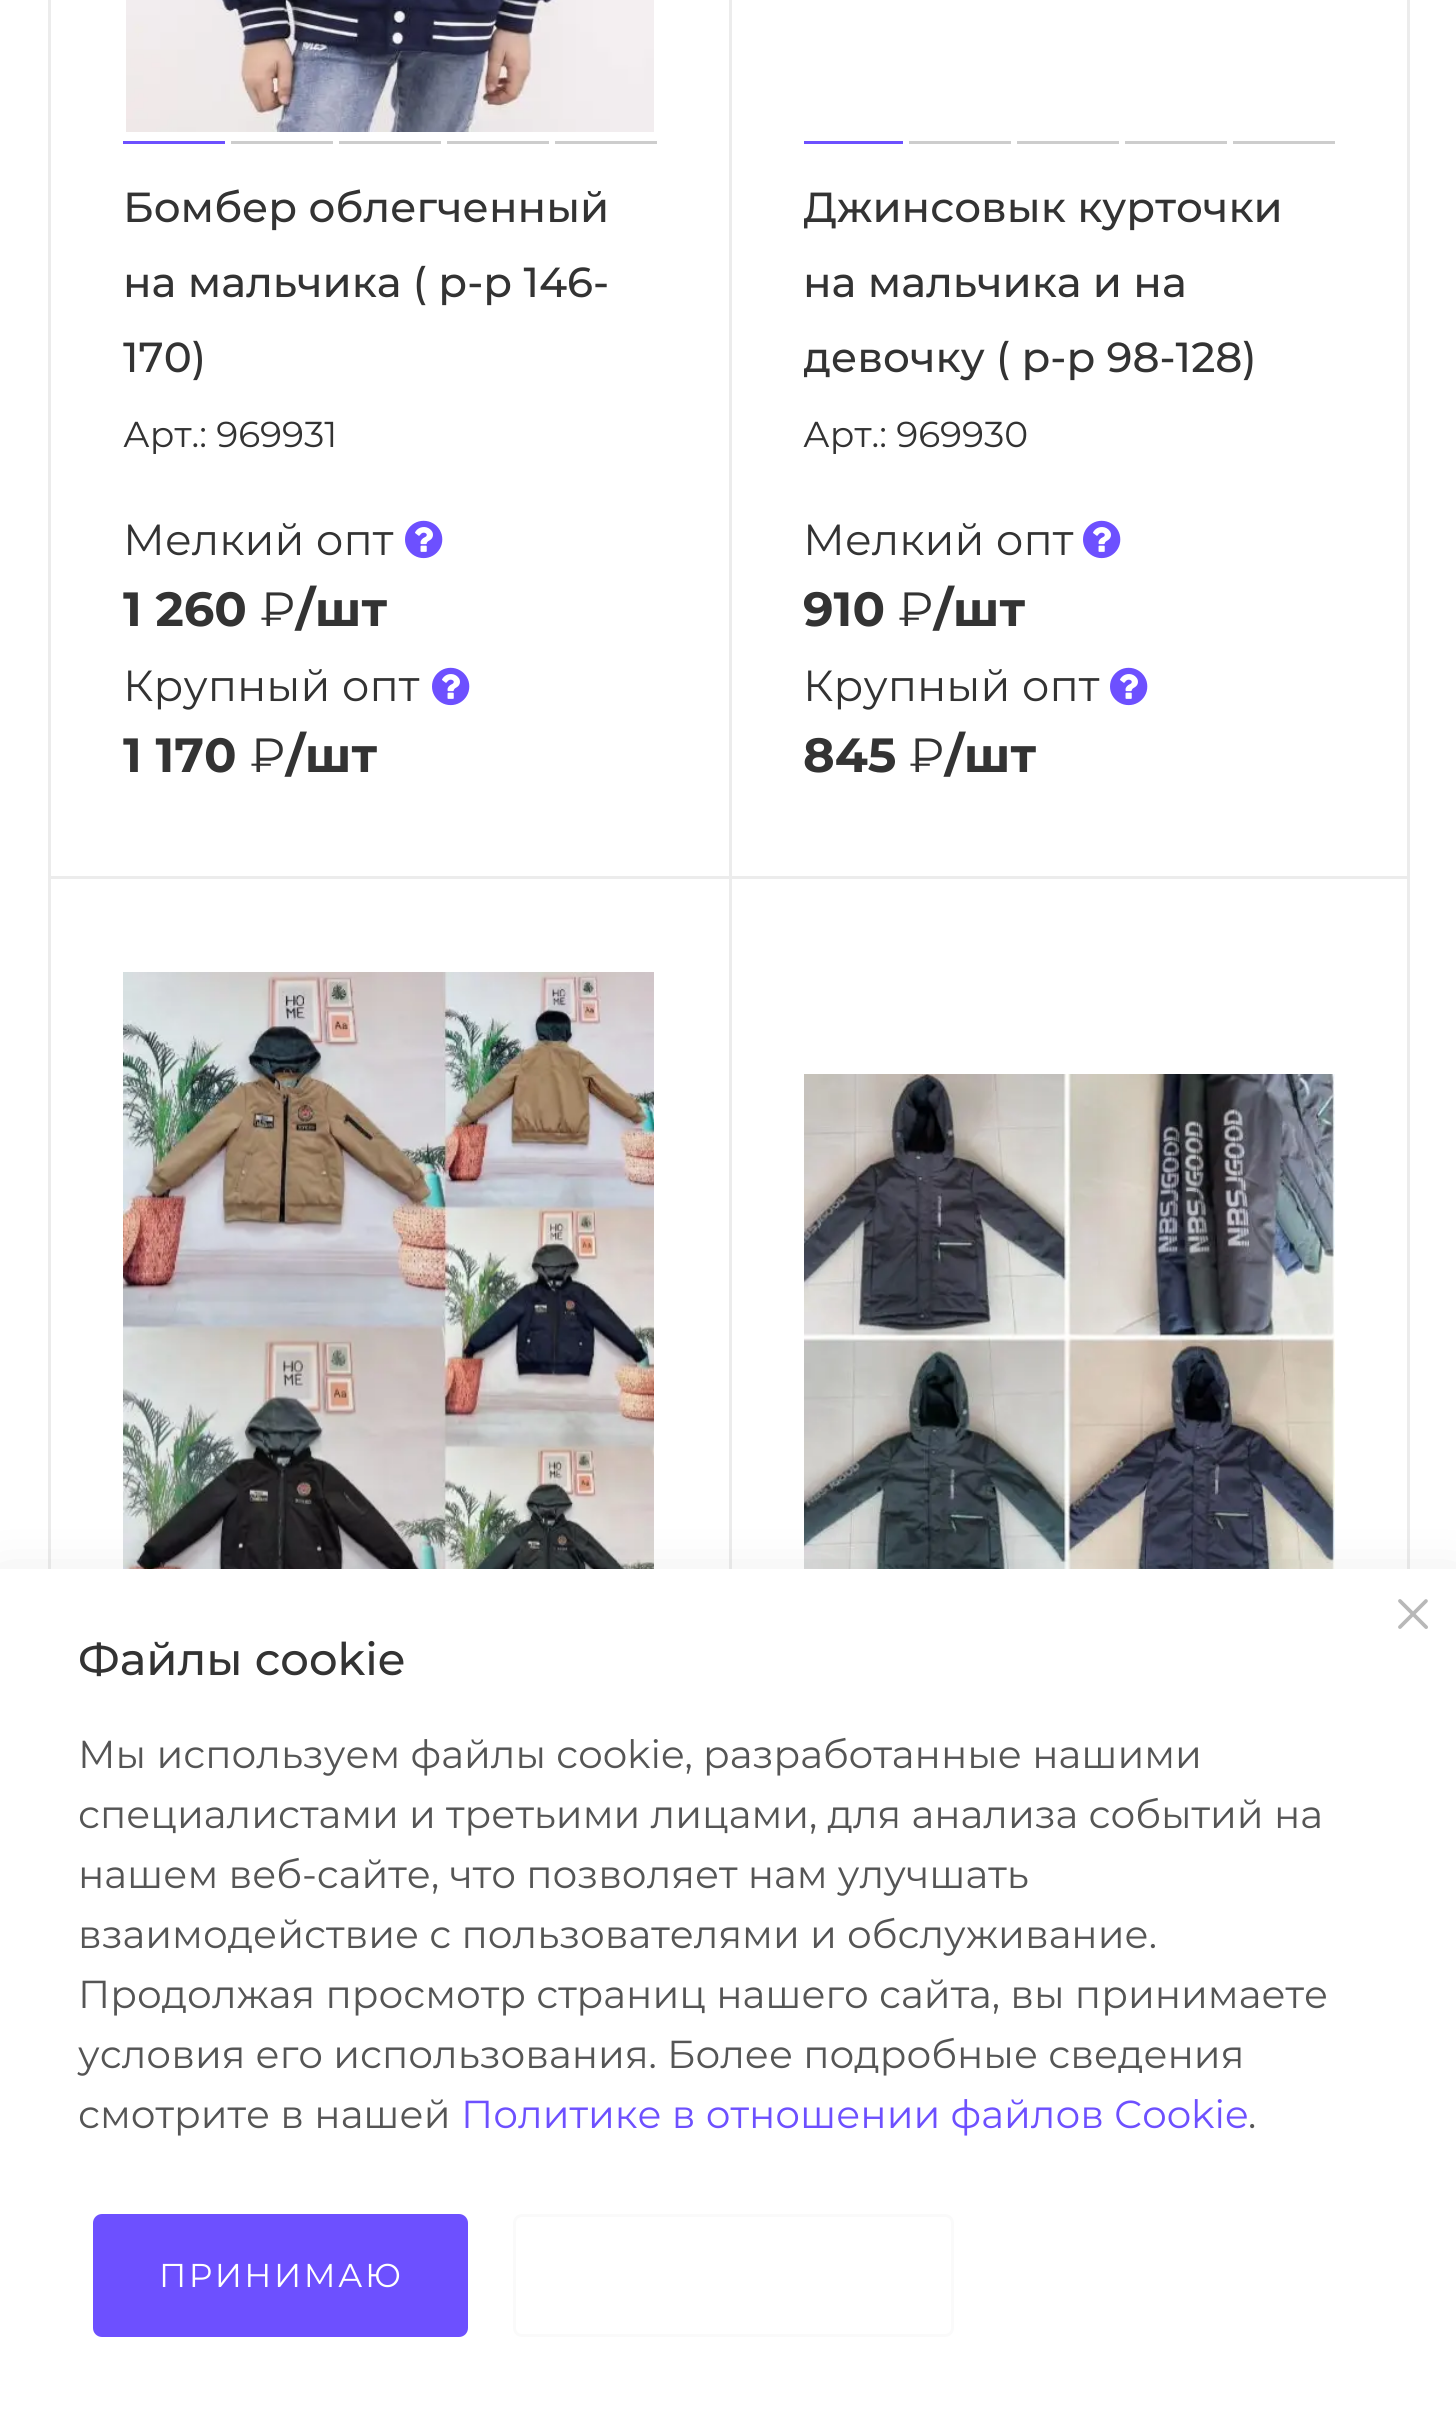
import math
import cairo

surface = cairo.ImageSurface(cairo.FORMAT_RGB24, 1456, 2411)
cr = cairo.Context(surface)
options = cairo.FontOptions()
options.set_hint_metrics(cairo.HINT_METRICS_OFF)
options.set_hint_style(cairo.HINT_STYLE_NONE)
cr.set_font_options(options)
cr.set_miter_limit(4)


def rgb(code):
    cr.set_source_rgb(*(v / 255 for v in bytes.fromhex(code[-6:])))


def tracked(x, y, s, letter, word):
    cr.move_to(x, y)
    for ch in s:
        cr.show_text(ch)
        cr.rel_move_to(letter + word * (ch == ' '), 0)


def rrect(x, y, w, h, r):
    cr.new_sub_path()
    for i, (u, v) in enumerate([(x + w - r, y + h - r), (x + r, y + h - r), (x + r, y + r), (x + w - r, y + r)]):
        cr.arc(u, v, r, i * math.pi / 2, (i + 1) * math.pi / 2)
    cr.close_path()


def soft_shadow(x, y, w, h, r, blur, alpha):
    cr.push_group_with_content(cairo.CONTENT_ALPHA)
    cr.set_operator(cairo.OPERATOR_SOURCE)
    for i in range(15, -16, -2):
        e = blur * i / 6
        if min(w, h) + 2 * e > 0:
            cr.set_source_rgba(0, 0, 0, alpha * math.erfc((i - 1) / 8.5) / 2)
            rrect(x - e, y - e, w + 2 * e, h + 2 * e, max(0, min(r + e + blur * .6, min(w, h) / 2 + e)))
            cr.fill()
    cr.mask(cr.pop_group())


def image(path, x, y, w, h):
    cr.save()
    cr.set_source_surface(cairo.ImageSurface.create_from_png(path), x, y)
    cr.rectangle(x, y, w, h)
    cr.fill()
    cr.restore()


rgb("#ffffff")
cr.paint()
cr.rectangle(49.5, -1.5, 681, 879)
rgb("#ececec")
cr.set_line_width(3)
cr.stroke()
image("img/1.png", 126, 0, 528, 132)
for x, y, w, h, color in [
    (123, 141, 102, 3, "#6d50ff"),
    (231, 141, 102, 3, "#cdcdcd"),
    (339, 141, 102, 3, "#cdcdcd"),
    (447, 141, 102, 3, "#cdcdcd"),
    (555, 141, 102, 3, "#cdcdcd"),
]:
    rgb(color)
    cr.rectangle(x, y, w, h)
    cr.fill()
image("img/2.png", 405, 520, 38, 39)
image("img/2.png", 432, 667, 38, 39)
cr.rectangle(730.5, -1.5, 678, 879)
rgb("#ececec")
cr.stroke()
for x, y, w, h, color in [
    (804, 141, 99, 3, "#6d50ff"),
    (909, 141, 102, 3, "#cdcdcd"),
    (1017, 141, 102, 3, "#cdcdcd"),
    (1125, 141, 102, 3, "#cdcdcd"),
    (1233, 141, 102, 3, "#cdcdcd"),
]:
    rgb(color)
    cr.rectangle(x, y, w, h)
    cr.fill()
image("img/2.png", 1083, 520, 38, 39)
image("img/2.png", 1110, 667, 38, 39)
cr.rectangle(49.5, 877.5, 681, 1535)
rgb("#ececec")
cr.stroke()
image("img/3.png", 123, 972, 531, 597)
cr.rectangle(730.5, 877.5, 678, 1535)
cr.stroke()
image("img/4.png", 804, 1074, 531, 495)
rgb("#000000")
soft_shadow(0, 1584, 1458, 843, 0, 30, 0.12)
rgb("#ffffff")
cr.rectangle(0, 1569, 1456, 842)
cr.fill()
image("img/5.png", 1398, 1599, 30, 30)
rgb("#6d50ff")
rrect(94.5, 2215.5, 372, 120, 7.5)
cr.fill_preserve()
cr.stroke()
rrect(514.5, 2215.5, 438, 120, 7.5)
rgb("#fafafa")
cr.stroke()
cr.select_font_face("Montserrat Medium")
cr.set_font_size(42)
rgb("#333333")
for x, y, s in [
    (123, 222, "Бомбер облегченный"),
    (123, 297, "на мальчика ( р-р 146-"),
    (123, 372, "170)"),
]:
    cr.move_to(x, y)
    cr.show_text(s)
cr.select_font_face("Montserrat")
cr.set_font_size(36)
cr.move_to(123, 447)
cr.show_text("Арт.: 969931")
cr.set_font_size(43.5)
cr.move_to(123, 555)
cr.show_text("Мелкий опт")
cr.select_font_face("Montserrat", cairo.FONT_SLANT_NORMAL, cairo.FONT_WEIGHT_BOLD)
cr.set_font_size(48)
cr.move_to(123, 626)
cr.show_text("1 260")
cr.select_font_face("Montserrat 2")
cr.move_to(260, 626)
cr.show_text("₽")
cr.select_font_face("Montserrat", cairo.FONT_SLANT_NORMAL, cairo.FONT_WEIGHT_BOLD)
cr.move_to(296, 626)
cr.show_text("/шт")
cr.select_font_face("Montserrat")
cr.set_font_size(43.5)
cr.move_to(123, 701)
cr.show_text("Крупный опт")
cr.select_font_face("Montserrat", cairo.FONT_SLANT_NORMAL, cairo.FONT_WEIGHT_BOLD)
cr.set_font_size(48)
cr.move_to(123, 772)
cr.show_text("1 170")
cr.select_font_face("Montserrat 2")
cr.move_to(250, 772)
cr.show_text("₽")
cr.select_font_face("Montserrat", cairo.FONT_SLANT_NORMAL, cairo.FONT_WEIGHT_BOLD)
cr.move_to(286, 772)
cr.show_text("/шт")
cr.save()
cr.rectangle(804, 168, 531, 225)
cr.clip()
cr.select_font_face("Montserrat Medium")
cr.set_font_size(42)
cr.move_to(803, 222)
cr.show_text("Джинсовык курточки")
cr.restore()
cr.select_font_face("Montserrat Medium")
cr.set_font_size(42)
cr.move_to(803, 297)
cr.show_text("на мальчика и на")
cr.save()
cr.rectangle(804, 168, 531, 225)
cr.clip()
cr.move_to(803, 372)
cr.show_text("девочку ( р-р 98-128)")
cr.restore()
cr.select_font_face("Montserrat")
cr.set_font_size(36)
cr.move_to(803, 447)
cr.show_text("Арт.: 969930")
cr.set_font_size(43.5)
cr.move_to(803, 555)
cr.show_text("Мелкий опт")
cr.select_font_face("Montserrat", cairo.FONT_SLANT_NORMAL, cairo.FONT_WEIGHT_BOLD)
cr.set_font_size(48)
cr.move_to(803, 626)
cr.show_text("910")
cr.select_font_face("Montserrat 2")
cr.move_to(898, 626)
cr.show_text("₽")
cr.select_font_face("Montserrat", cairo.FONT_SLANT_NORMAL, cairo.FONT_WEIGHT_BOLD)
cr.move_to(934, 626)
cr.show_text("/шт")
cr.select_font_face("Montserrat")
cr.set_font_size(43.5)
cr.move_to(803, 701)
cr.show_text("Крупный опт")
cr.select_font_face("Montserrat", cairo.FONT_SLANT_NORMAL, cairo.FONT_WEIGHT_BOLD)
cr.set_font_size(48)
cr.move_to(803, 772)
cr.show_text("845")
cr.select_font_face("Montserrat 2")
cr.move_to(909, 772)
cr.show_text("₽")
cr.select_font_face("Montserrat", cairo.FONT_SLANT_NORMAL, cairo.FONT_WEIGHT_BOLD)
cr.move_to(945, 772)
cr.show_text("/шт")
cr.select_font_face("Montserrat Medium")
cr.set_font_size(45)
cr.move_to(78, 1675)
cr.show_text("Файлы cookie")
cr.select_font_face("Montserrat")
cr.set_font_size(39)
rgb("#555555")
for x, y, s in [
    (78, 1768, "Мы используем файлы cookie, разработанные нашими"),
    (78, 1828, "специалистами и третьими лицами, для анализа событий на"),
    (78, 1888, "нашем веб-сайте, что позволяет нам улучшать"),
    (78, 1948, "взаимодействие с пользователями и обслуживание."),
    (78, 2008, "Продолжая просмотр страниц нашего сайта, вы принимаете"),
    (78, 2068, "условия его использования. Более подробные сведения"),
    (78, 2128, "смотрите в нашей"),
]:
    cr.move_to(x, y)
    cr.show_text(s)
rgb("#6d50ff")
cr.move_to(461, 2128)
cr.show_text("Политике в отношении файлов Cookie")
rgb("#555555")
cr.move_to(1248, 2128)
cr.show_text(".")
cr.set_font_size(33)
rgb("#ffffff")
tracked(159, 2287, "ПРИНИМАЮ", 2.5, 0)
surface.write_to_png("page.png")
